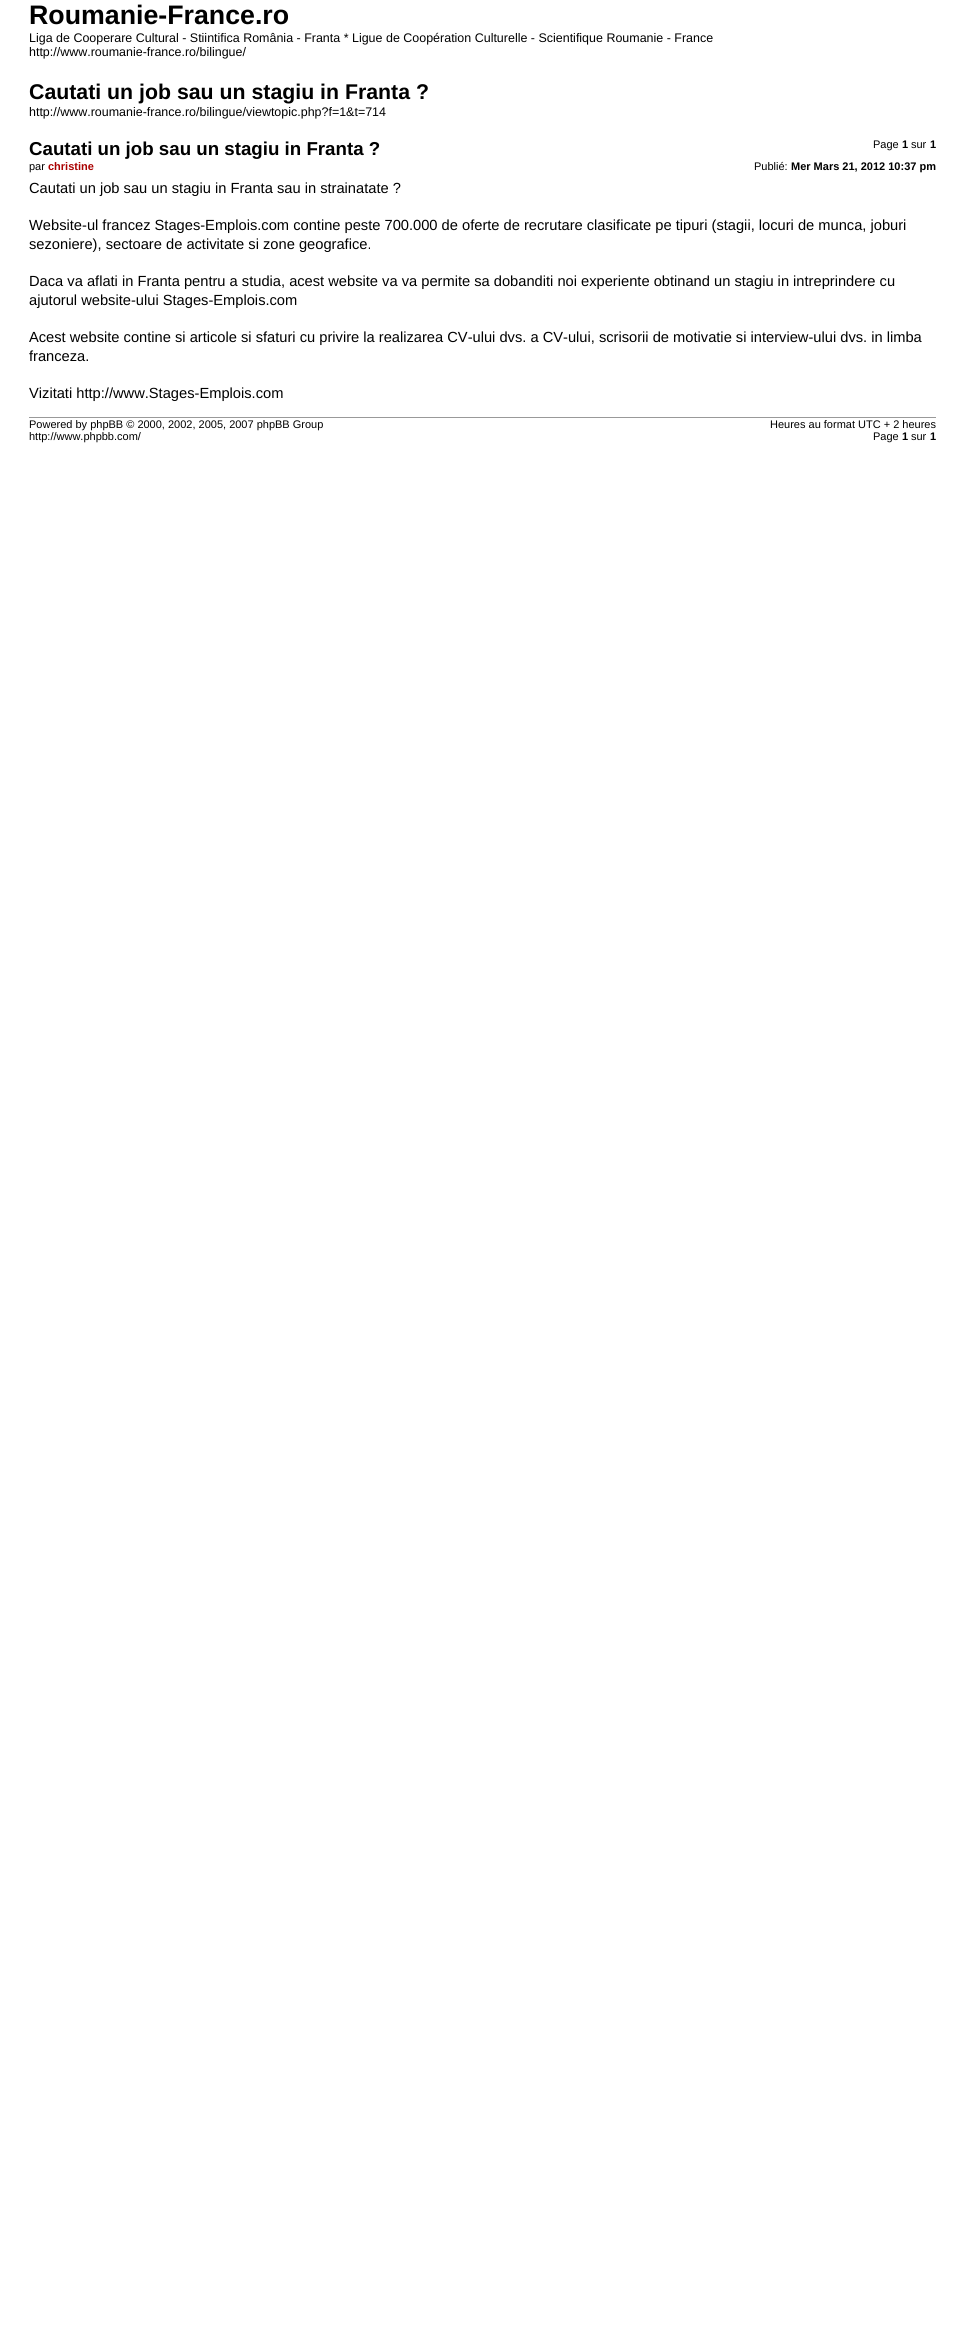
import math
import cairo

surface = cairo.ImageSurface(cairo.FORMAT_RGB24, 965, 2337)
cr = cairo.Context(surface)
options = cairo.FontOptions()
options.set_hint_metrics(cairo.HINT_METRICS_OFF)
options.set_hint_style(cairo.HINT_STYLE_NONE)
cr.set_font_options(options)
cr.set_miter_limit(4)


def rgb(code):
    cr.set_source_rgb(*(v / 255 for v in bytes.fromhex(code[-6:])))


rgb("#ffffff")
cr.paint()
rgb("#999999")
cr.rectangle(29, 417, 907, 1)
cr.fill()
cr.select_font_face("Liberation Sans", cairo.FONT_SLANT_NORMAL, cairo.FONT_WEIGHT_BOLD)
cr.set_font_size(26.75)
rgb("#000000")
cr.move_to(29, 24)
cr.show_text("Roumanie-France.ro")
cr.select_font_face("Liberation Sans")
cr.set_font_size(12.47)
cr.move_to(29, 42)
cr.show_text("Liga de Cooperare Cultural - Stiintifica România - Franta * Ligue de Coopération Culturelle - Scientifique Roumanie - France")
cr.move_to(29, 56)
cr.show_text("http://www.roumanie-france.ro/bilingue/")
cr.select_font_face("Liberation Sans", cairo.FONT_SLANT_NORMAL, cairo.FONT_WEIGHT_BOLD)
cr.set_font_size(21.3)
cr.move_to(29, 99)
cr.show_text("Cautati un job sau un stagiu in Franta ?")
cr.select_font_face("Liberation Sans")
cr.set_font_size(12.47)
cr.move_to(29, 116)
cr.show_text("http://www.roumanie-france.ro/bilingue/viewtopic.php?f=1&t=714")
cr.set_font_size(11)
cr.move_to(873, 148)
cr.show_text("Page")
cr.select_font_face("Liberation Sans", cairo.FONT_SLANT_NORMAL, cairo.FONT_WEIGHT_BOLD)
cr.move_to(902, 148)
cr.show_text("1")
cr.select_font_face("Liberation Sans")
cr.move_to(911, 148)
cr.show_text("sur")
cr.select_font_face("Liberation Sans", cairo.FONT_SLANT_NORMAL, cairo.FONT_WEIGHT_BOLD)
cr.move_to(930, 148)
cr.show_text("1")
cr.set_font_size(18.7)
cr.move_to(29, 155)
cr.show_text("Cautati un job sau un stagiu in Franta ?")
cr.select_font_face("Liberation Sans")
cr.set_font_size(11)
cr.move_to(29, 170)
cr.show_text("par")
cr.select_font_face("Liberation Sans", cairo.FONT_SLANT_NORMAL, cairo.FONT_WEIGHT_BOLD)
rgb("#aa0000")
cr.move_to(48, 170)
cr.show_text("christine")
cr.select_font_face("Liberation Sans")
rgb("#000000")
cr.move_to(754, 170)
cr.show_text("Publié:")
cr.select_font_face("Liberation Sans", cairo.FONT_SLANT_NORMAL, cairo.FONT_WEIGHT_BOLD)
cr.move_to(791, 170)
cr.show_text("Mer Mars 21, 2012 10:37 pm")
cr.select_font_face("Liberation Sans")
cr.set_font_size(14.67)
for x, y, s in [
    (29, 193, "Cautati un job sau un stagiu in Franta sau in strainatate ?"),
    (29, 230, "Website-ul francez Stages-Emplois.com contine peste 700.000 de oferte de recrutare clasificate pe tipuri (stagii, locuri de munca, joburi"),
    (29, 249, "sezoniere), sectoare de activitate si zone geografice."),
    (29, 286, "Daca va aflati in Franta pentru a studia, acest website va va permite sa dobanditi noi experiente obtinand un stagiu in intreprindere cu"),
    (29, 305, "ajutorul website-ului Stages-Emplois.com"),
    (29, 342, "Acest website contine si articole si sfaturi cu privire la realizarea CV-ului dvs. a CV-ului, scrisorii de motivatie si interview-ului dvs. in limba"),
    (29, 361, "franceza."),
    (29, 398, "Vizitati http://www.Stages-Emplois.com"),
]:
    cr.move_to(x, y)
    cr.show_text(s)
cr.set_font_size(11)
for x, y, s in [
    (29, 428, "Powered by phpBB © 2000, 2002, 2005, 2007 phpBB Group"),
    (29, 440, "http://www.phpbb.com/"),
    (770, 428, "Heures au format UTC + 2 heures"),
    (873, 440, "Page"),
]:
    cr.move_to(x, y)
    cr.show_text(s)
cr.select_font_face("Liberation Sans", cairo.FONT_SLANT_NORMAL, cairo.FONT_WEIGHT_BOLD)
cr.move_to(902, 440)
cr.show_text("1")
cr.select_font_face("Liberation Sans")
cr.move_to(911, 440)
cr.show_text("sur")
cr.select_font_face("Liberation Sans", cairo.FONT_SLANT_NORMAL, cairo.FONT_WEIGHT_BOLD)
cr.move_to(930, 440)
cr.show_text("1")
surface.write_to_png("page.png")
